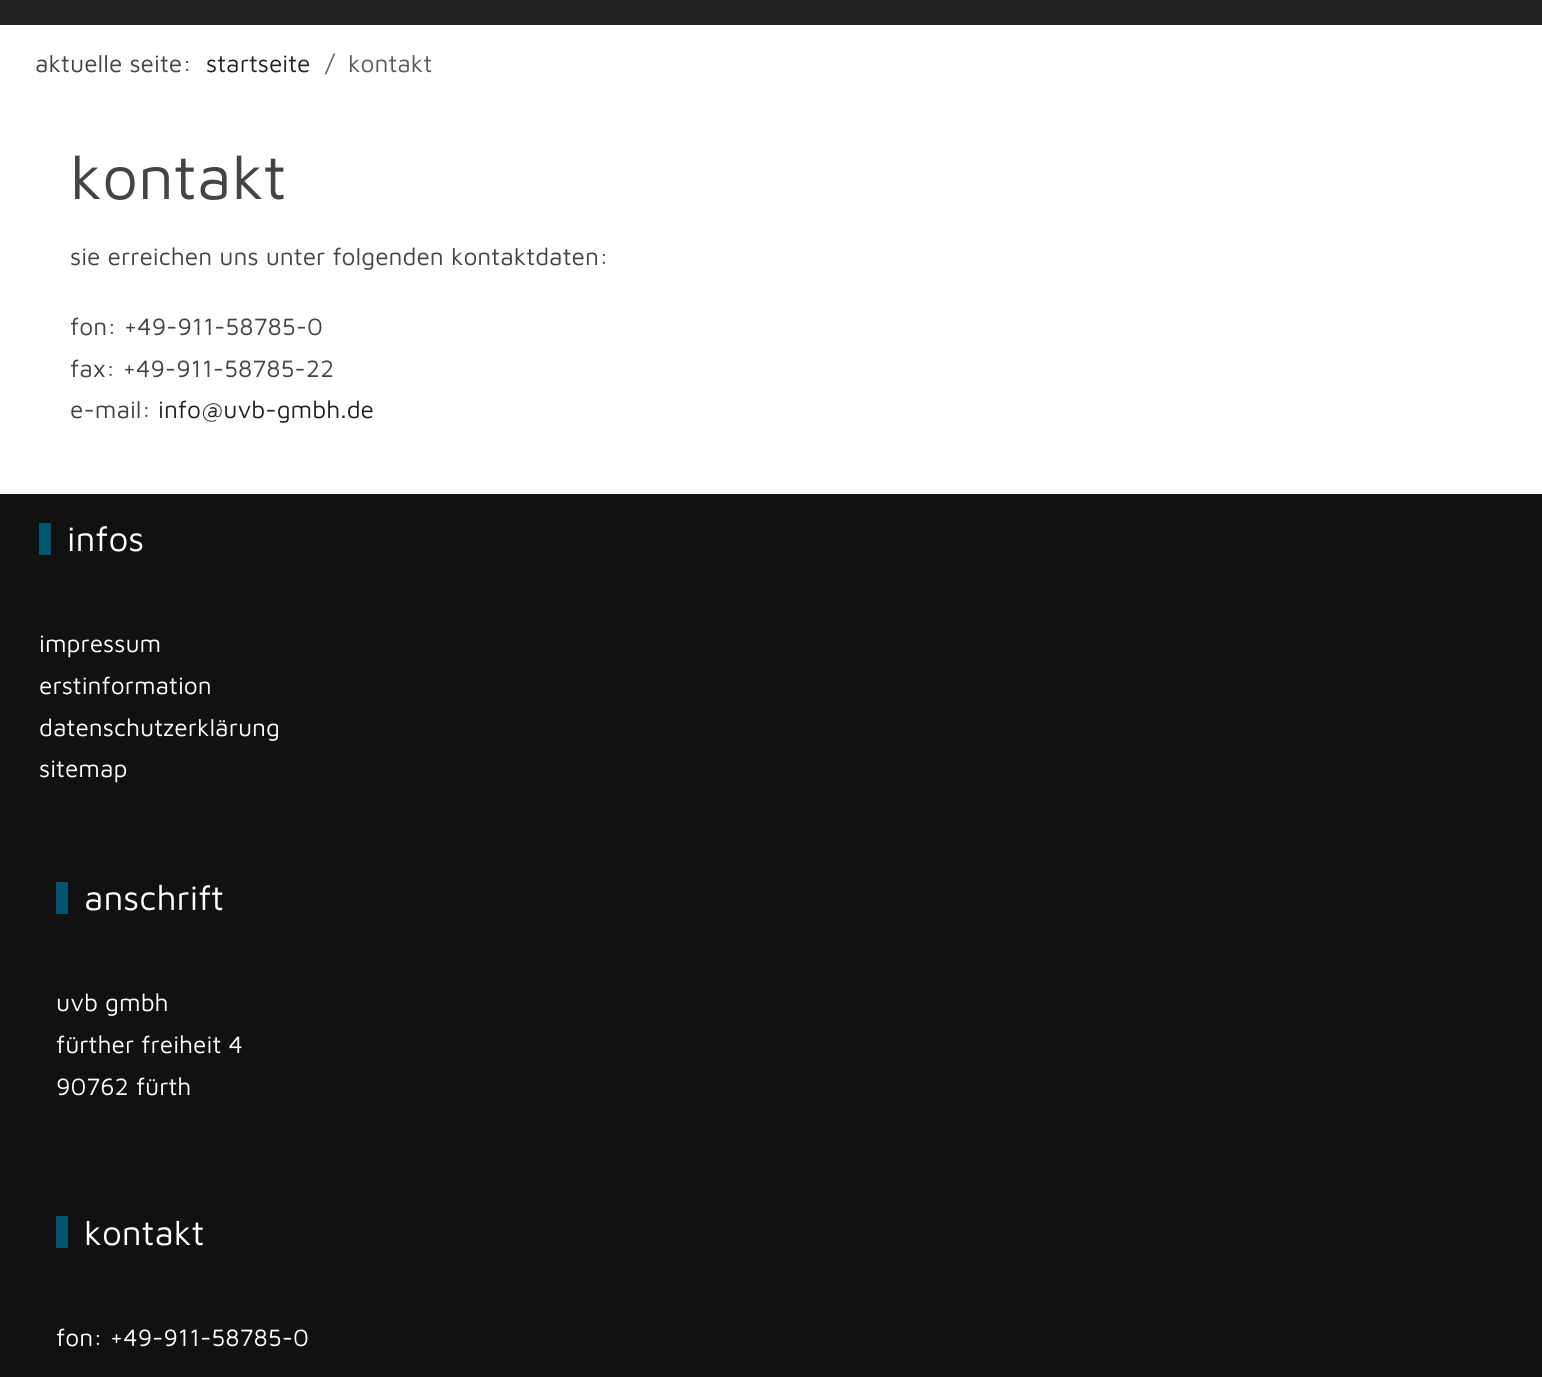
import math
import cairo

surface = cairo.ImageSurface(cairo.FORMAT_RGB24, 1542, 1377)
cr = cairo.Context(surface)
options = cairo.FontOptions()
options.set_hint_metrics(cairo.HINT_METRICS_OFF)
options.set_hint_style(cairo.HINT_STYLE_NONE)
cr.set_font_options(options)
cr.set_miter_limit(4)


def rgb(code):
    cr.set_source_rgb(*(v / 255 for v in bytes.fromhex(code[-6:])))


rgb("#222222")
cr.paint()
for x, y, w, h, color in [
    (0, 25, 1542, 469, "#ffffff"),
    (0, 494, 1542, 883, "#111111"),
    (39, 523, 12, 32, "#00556f"),
    (56, 882, 12, 32, "#00556f"),
    (56, 1216, 12, 32, "#00556f"),
]:
    rgb(color)
    cr.rectangle(x, y, w, h)
    cr.fill()
cr.select_font_face("Maven Pro")
cr.set_font_size(24.5)
rgb("#444444")
cr.move_to(35, 72)
cr.show_text("aktuelle seite:")
rgb("#222222")
cr.move_to(206, 72)
cr.show_text("startseite")
rgb("#595c5f")
cr.move_to(325, 72)
cr.show_text("/")
cr.move_to(348, 72)
cr.show_text("kontakt")
cr.set_font_size(63)
rgb("#444444")
cr.move_to(70, 199)
cr.show_text("kontakt")
cr.set_font_size(24.5)
for x, y, s in [
    (70, 265, "sie erreichen uns unter folgenden kontaktdaten:"),
    (70, 335, "fon: +49-911-58785-0"),
    (70, 377, "fax: +49-911-58785-22"),
    (70, 418, "e-mail:"),
]:
    cr.move_to(x, y)
    cr.show_text(s)
rgb("#222222")
cr.move_to(158, 418)
cr.show_text("info@uvb-gmbh.de")
cr.set_font_size(35)
rgb("#ffffff")
cr.move_to(67, 551)
cr.show_text("infos")
cr.set_font_size(24.5)
for x, y, s in [
    (39, 652, "impressum"),
    (39, 694, "erstinformation"),
    (39, 736, "datenschutzerklärung"),
    (39, 777, "sitemap"),
]:
    cr.move_to(x, y)
    cr.show_text(s)
cr.set_font_size(35)
cr.move_to(84, 910)
cr.show_text("anschrift")
cr.set_font_size(24.5)
for x, y, s in [
    (56, 1011, "uvb gmbh"),
    (56, 1053, "fürther freiheit 4"),
    (56, 1095, "90762 fürth"),
]:
    cr.move_to(x, y)
    cr.show_text(s)
cr.set_font_size(35)
cr.move_to(84, 1245)
cr.show_text("kontakt")
cr.set_font_size(24.5)
cr.move_to(56, 1346)
cr.show_text("fon: +49-911-58785-0")
surface.write_to_png("page.png")
